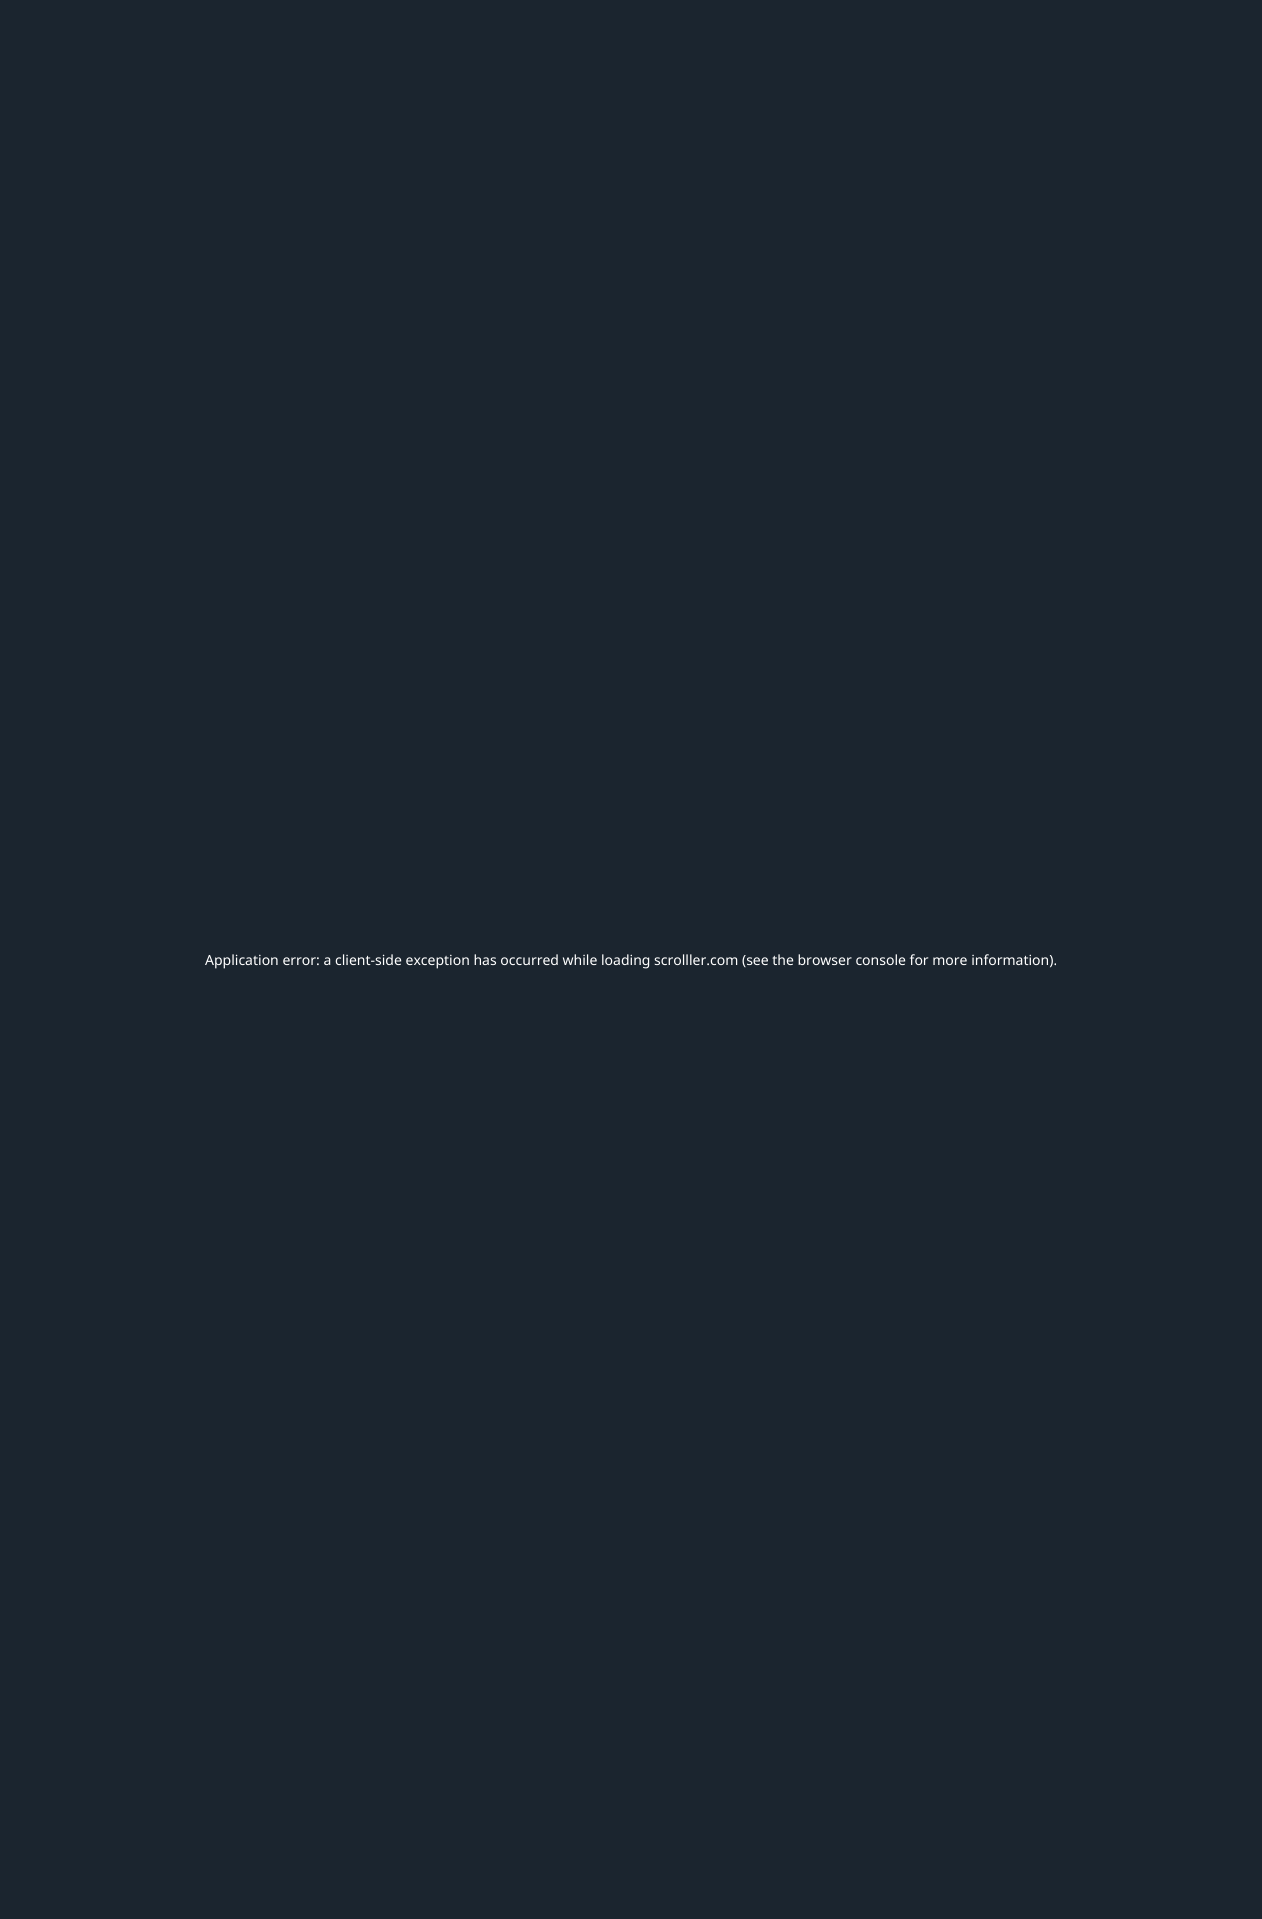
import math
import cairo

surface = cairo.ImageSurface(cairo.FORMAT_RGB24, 1262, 1919)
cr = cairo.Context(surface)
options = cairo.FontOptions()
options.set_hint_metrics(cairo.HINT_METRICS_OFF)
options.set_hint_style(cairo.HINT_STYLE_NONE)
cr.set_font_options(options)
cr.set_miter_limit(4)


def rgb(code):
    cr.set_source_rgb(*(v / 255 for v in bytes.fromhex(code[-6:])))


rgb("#1b252f")
cr.paint()
cr.select_font_face("Noto Sans")
cr.set_font_size(14)
rgb("#ffffff")
cr.move_to(205, 965)
cr.show_text("Application error: a client-side exception has occurred while loading scrolller.com (see the browser console for more information).")
surface.write_to_png("page.png")
